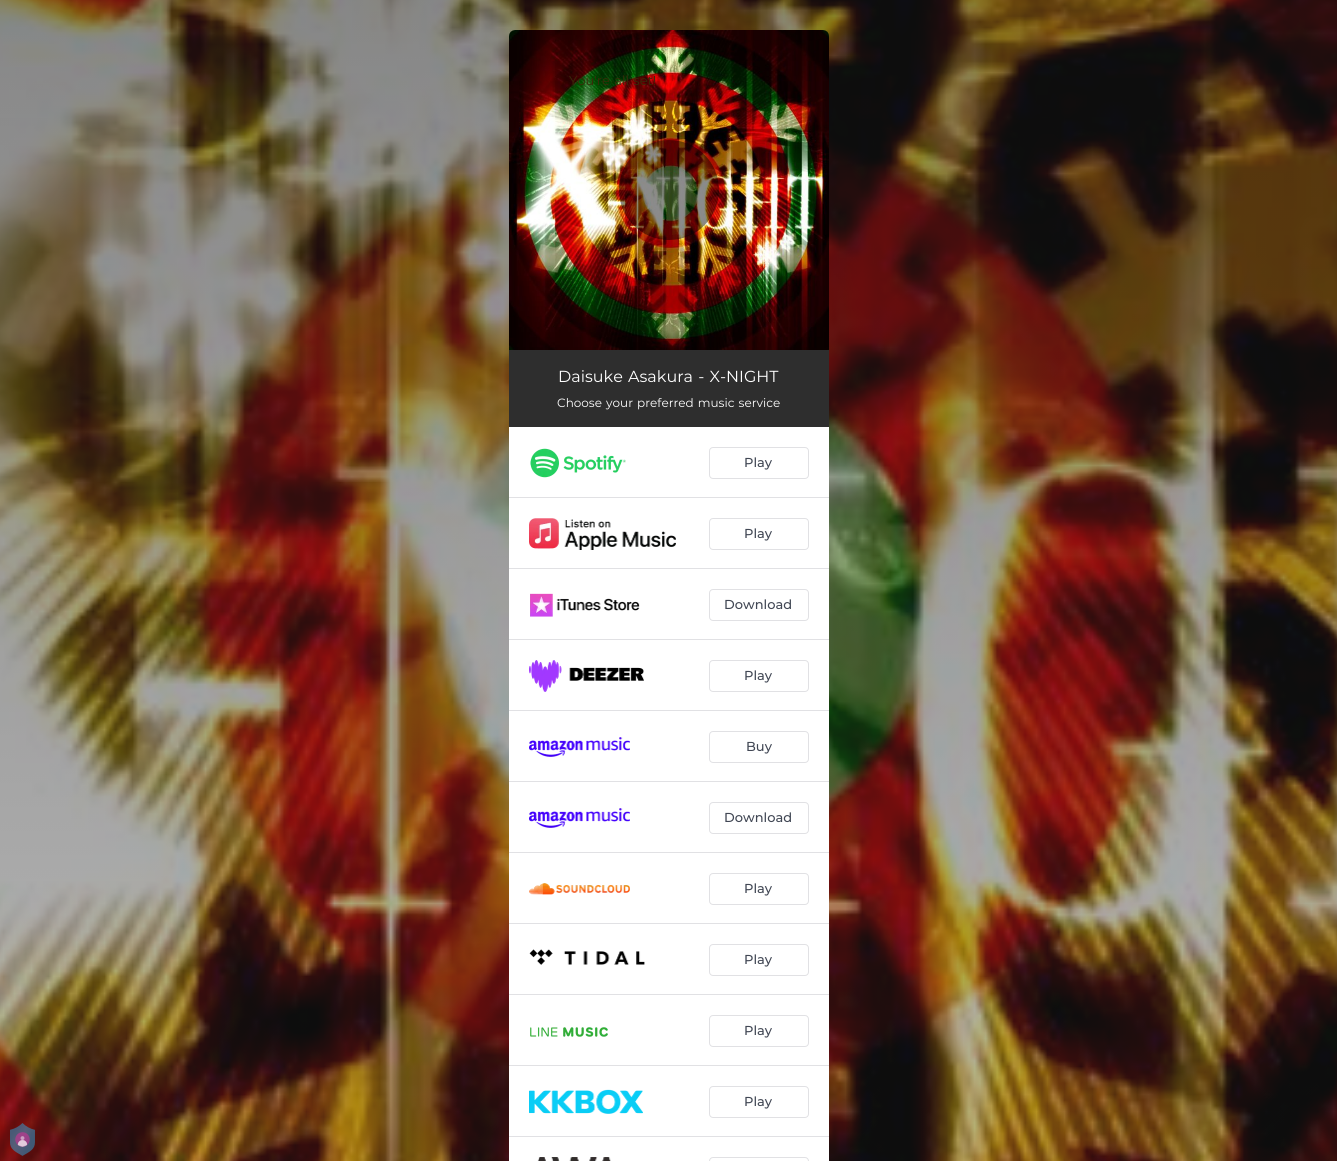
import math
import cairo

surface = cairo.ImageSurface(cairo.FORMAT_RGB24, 1337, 1161)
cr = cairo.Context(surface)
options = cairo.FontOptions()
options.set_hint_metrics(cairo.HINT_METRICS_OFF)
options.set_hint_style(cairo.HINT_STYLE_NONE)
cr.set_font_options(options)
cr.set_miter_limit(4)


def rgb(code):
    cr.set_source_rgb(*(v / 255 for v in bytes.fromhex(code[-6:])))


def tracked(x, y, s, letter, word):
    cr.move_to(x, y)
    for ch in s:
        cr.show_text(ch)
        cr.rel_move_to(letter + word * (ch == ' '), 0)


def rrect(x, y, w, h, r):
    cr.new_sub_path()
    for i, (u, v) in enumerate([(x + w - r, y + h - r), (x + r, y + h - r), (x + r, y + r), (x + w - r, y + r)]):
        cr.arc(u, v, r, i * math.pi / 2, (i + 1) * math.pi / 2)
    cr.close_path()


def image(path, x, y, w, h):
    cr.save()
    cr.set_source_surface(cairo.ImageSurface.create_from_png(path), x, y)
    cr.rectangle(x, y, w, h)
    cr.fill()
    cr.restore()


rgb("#ffffff")
cr.paint()
image("img/1.png", 0, 0, 1337, 1161)
image("img/2.png", 509, 30, 320, 320)
cr.set_source_rgba(0, 0, 0, 0.45)
cr.arc(669, 190, 50, 0, 2 * math.pi)
cr.fill()
for x, y, w, h, color in [
    (509, 350, 320, 77, "#2e2e2e"),
    (509, 427, 320, 734, "#ffffff"),
    (509, 497, 320, 1, "#e1e1e4"),
]:
    rgb(color)
    cr.rectangle(x, y, w, h)
    cr.fill()
image("img/3.png", 530, 448, 96, 30)
rrect(709.5, 447.5, 99, 31, 3.5)
cr.set_line_width(1)
cr.stroke()
cr.rectangle(509, 568, 320, 1)
cr.fill()
image("img/4.png", 529, 518, 147, 32)
rrect(709.5, 518.5, 99, 31, 3.5)
cr.stroke()
cr.rectangle(509, 639, 320, 1)
cr.fill()
image("img/5.png", 530, 593, 110, 24)
rrect(709.5, 589.5, 99, 31, 3.5)
cr.stroke()
cr.rectangle(509, 710, 320, 1)
cr.fill()
image("img/6.png", 529, 660, 115, 32)
rrect(709.5, 660.5, 99, 31, 3.5)
cr.stroke()
cr.rectangle(509, 781, 320, 1)
cr.fill()
image("img/7.png", 529, 737, 101, 20)
rrect(709.5, 731.5, 99, 31, 3.5)
cr.stroke()
cr.rectangle(509, 852, 320, 1)
cr.fill()
image("img/7.png", 529, 808, 101, 20)
rrect(709.5, 802.5, 99, 31, 3.5)
cr.stroke()
cr.rectangle(509, 923, 320, 1)
cr.fill()
image("img/8.png", 529, 883, 101, 12)
rrect(709.5, 873.5, 99, 31, 3.5)
cr.stroke()
cr.rectangle(509, 994, 320, 1)
cr.fill()
image("img/9.png", 529, 949, 116, 16)
rrect(709.5, 944.5, 99, 31, 3.5)
cr.stroke()
cr.rectangle(509, 1065, 320, 1)
cr.fill()
image("img/10.png", 530, 1027, 78, 10)
rrect(709.5, 1015.5, 99, 31, 3.5)
cr.stroke()
cr.rectangle(509, 1136, 320, 1)
cr.fill()
image("img/11.png", 529, 1089, 114, 25)
rrect(709.5, 1086.5, 99, 31, 3.5)
cr.stroke()
image("img/12.png", 537, 1157, 74, 4)
rrect(709.5, 1157.5, 99, 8, 3.5)
cr.stroke()
image("img/13.png", 10, 1123, 25, 33)
cr.select_font_face("Montserrat")
cr.set_font_size(13)
rgb("#392b09")
tracked(569, 85, "You're all set!", 0, 1)
cr.set_font_size(16)
rgb("#ffffff")
tracked(558, 382, "Daisuke Asakura - X-NIGHT", 0, 1)
cr.set_font_size(12)
tracked(557, 407, "Choose your preferred music service", 0, 1)
cr.select_font_face("Montserrat Medium")
cr.set_font_size(13)
rgb("#414754")
for x, y, s in [
    (744, 467, "Play"),
    (744, 538, "Play"),
    (724, 609, "Download"),
    (744, 680, "Play"),
    (746, 751, "Buy"),
    (724, 822, "Download"),
    (744, 893, "Play"),
    (744, 964, "Play"),
    (744, 1035, "Play"),
    (744, 1106, "Play"),
]:
    cr.move_to(x, y)
    cr.show_text(s)
surface.write_to_png("page.png")
